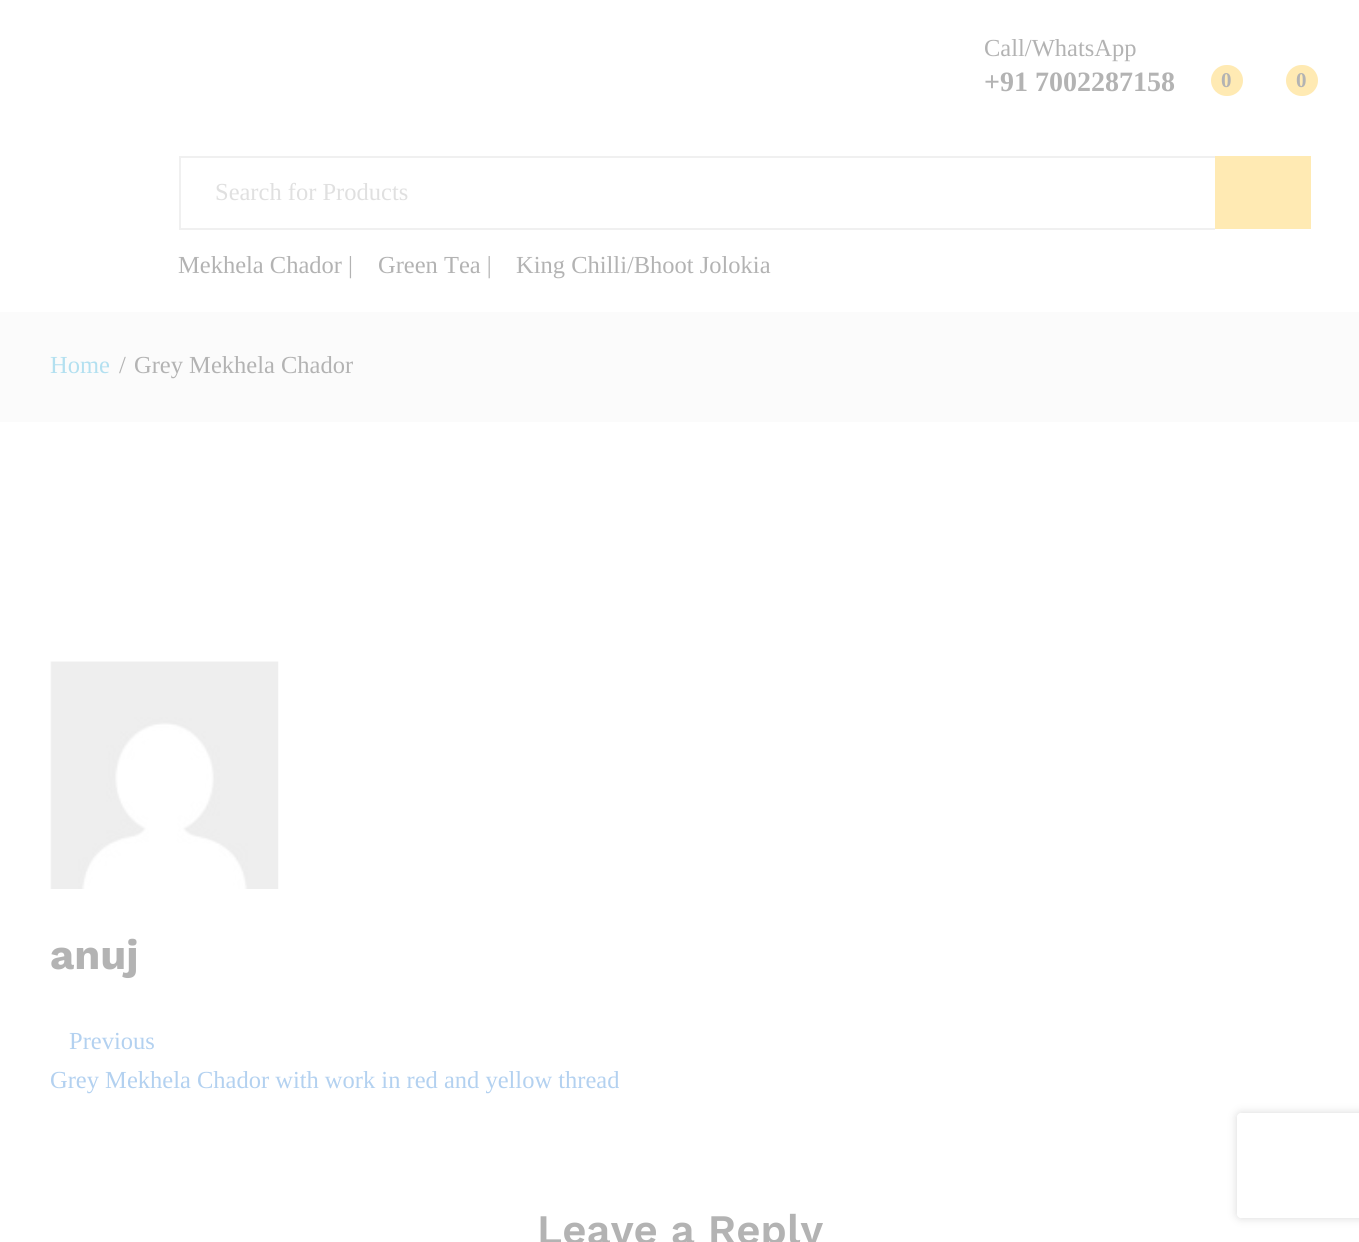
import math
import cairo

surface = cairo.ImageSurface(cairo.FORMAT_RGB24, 1359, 1242)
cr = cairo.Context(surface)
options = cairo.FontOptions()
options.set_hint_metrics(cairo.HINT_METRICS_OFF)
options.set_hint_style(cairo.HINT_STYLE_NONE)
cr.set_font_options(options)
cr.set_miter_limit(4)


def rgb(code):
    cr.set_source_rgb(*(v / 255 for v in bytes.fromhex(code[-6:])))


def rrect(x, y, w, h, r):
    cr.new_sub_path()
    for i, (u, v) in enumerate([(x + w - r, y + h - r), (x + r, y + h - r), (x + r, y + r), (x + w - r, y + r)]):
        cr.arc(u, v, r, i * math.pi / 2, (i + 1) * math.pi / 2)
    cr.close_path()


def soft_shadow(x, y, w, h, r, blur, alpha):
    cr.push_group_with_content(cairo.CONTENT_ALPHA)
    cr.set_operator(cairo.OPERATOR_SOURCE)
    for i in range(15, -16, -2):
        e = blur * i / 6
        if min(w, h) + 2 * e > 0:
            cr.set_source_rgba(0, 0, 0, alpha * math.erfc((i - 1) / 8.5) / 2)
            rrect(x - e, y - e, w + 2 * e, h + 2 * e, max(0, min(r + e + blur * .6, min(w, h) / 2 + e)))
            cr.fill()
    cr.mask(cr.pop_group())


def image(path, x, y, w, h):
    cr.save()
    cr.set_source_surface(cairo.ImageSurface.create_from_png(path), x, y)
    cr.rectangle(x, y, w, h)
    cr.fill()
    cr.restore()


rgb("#ffffff")
cr.paint()
rgb("#ffeab3")
rrect(1211, 65, 32, 31, 15.5)
cr.fill()
rrect(1286, 65, 32, 31, 15.5)
cr.fill()
for x, y, w, h, color in [
    (179, 156, 1036, 2, "#f0f0f0"),
    (179, 228, 1036, 2, "#f0f0f0"),
    (179, 156, 2, 73, "#f0f0f0"),
    (1215, 156, 96, 73, "#ffeab3"),
    (0, 312, 1359, 110, "#fbfbfb"),
]:
    rgb(color)
    cr.rectangle(x, y, w, h)
    cr.fill()
image("img/1.png", 50, 661, 229, 228)
cr.save()
cr.set_fill_rule(cairo.FILL_RULE_EVEN_ODD)
cr.new_path()
cr.move_to(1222, 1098)
cr.line_to(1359, 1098)
cr.line_to(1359, 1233)
cr.line_to(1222, 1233)
cr.close_path()
cr.move_to(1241, 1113)
cr.line_to(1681, 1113)
cr.curve_to(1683, 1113, 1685, 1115, 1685, 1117)
cr.line_to(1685, 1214)
cr.curve_to(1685, 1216, 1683, 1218, 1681, 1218)
cr.line_to(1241, 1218)
cr.curve_to(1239, 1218, 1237, 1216, 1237, 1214)
cr.line_to(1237, 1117)
cr.curve_to(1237, 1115, 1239, 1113, 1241, 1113)
cr.close_path()
cr.clip()
rgb("#d9d9d9")
soft_shadow(1237, 1113, 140, 105, 4, 4.5, 1)
cr.restore()
cr.select_font_face("Liberation Serif")
cr.set_font_size(24.5)
rgb("#b3b3b3")
cr.move_to(984, 56)
cr.show_text("Call/WhatsApp")
cr.select_font_face("Liberation Serif", cairo.FONT_SLANT_NORMAL, cairo.FONT_WEIGHT_BOLD)
cr.set_font_size(28)
cr.move_to(984, 91)
cr.show_text("+91 7002287158")
cr.set_font_size(21)
cr.move_to(1221, 87)
cr.show_text("0")
cr.move_to(1296, 87)
cr.show_text("0")
cr.select_font_face("Liberation Serif")
cr.set_font_size(24.5)
rgb("#e0e0e0")
cr.move_to(215, 200)
cr.show_text("Search for Products")
rgb("#b3b3b3")
for x, y, s in [
    (178, 273, "Mekhela Chador |"),
    (378, 273, "Green Tea |"),
    (516, 273, "King Chilli/Bhoot Jolokia"),
]:
    cr.move_to(x, y)
    cr.show_text(s)
rgb("#b3e0f0")
cr.move_to(50, 373)
cr.show_text("Home")
rgb("#b3b3b3")
cr.move_to(119, 373)
cr.show_text("/")
cr.move_to(134, 373)
cr.show_text("Grey Mekhela Chador")
cr.select_font_face("Work Sans", cairo.FONT_SLANT_NORMAL, cairo.FONT_WEIGHT_BOLD)
cr.set_font_size(42)
cr.move_to(50, 969)
cr.show_text("anuj")
cr.select_font_face("Liberation Serif")
cr.set_font_size(24.5)
rgb("#b3d1f0")
cr.move_to(69, 1049)
cr.show_text("Previous")
cr.move_to(50, 1088)
cr.show_text("Grey Mekhela Chador with work in red and yellow thread")
cr.select_font_face("Work Sans SemiBold")
cr.set_font_size(42)
rgb("#b3b3b3")
cr.move_to(537, 1244)
cr.show_text("Leave a Reply")
surface.write_to_png("page.png")
